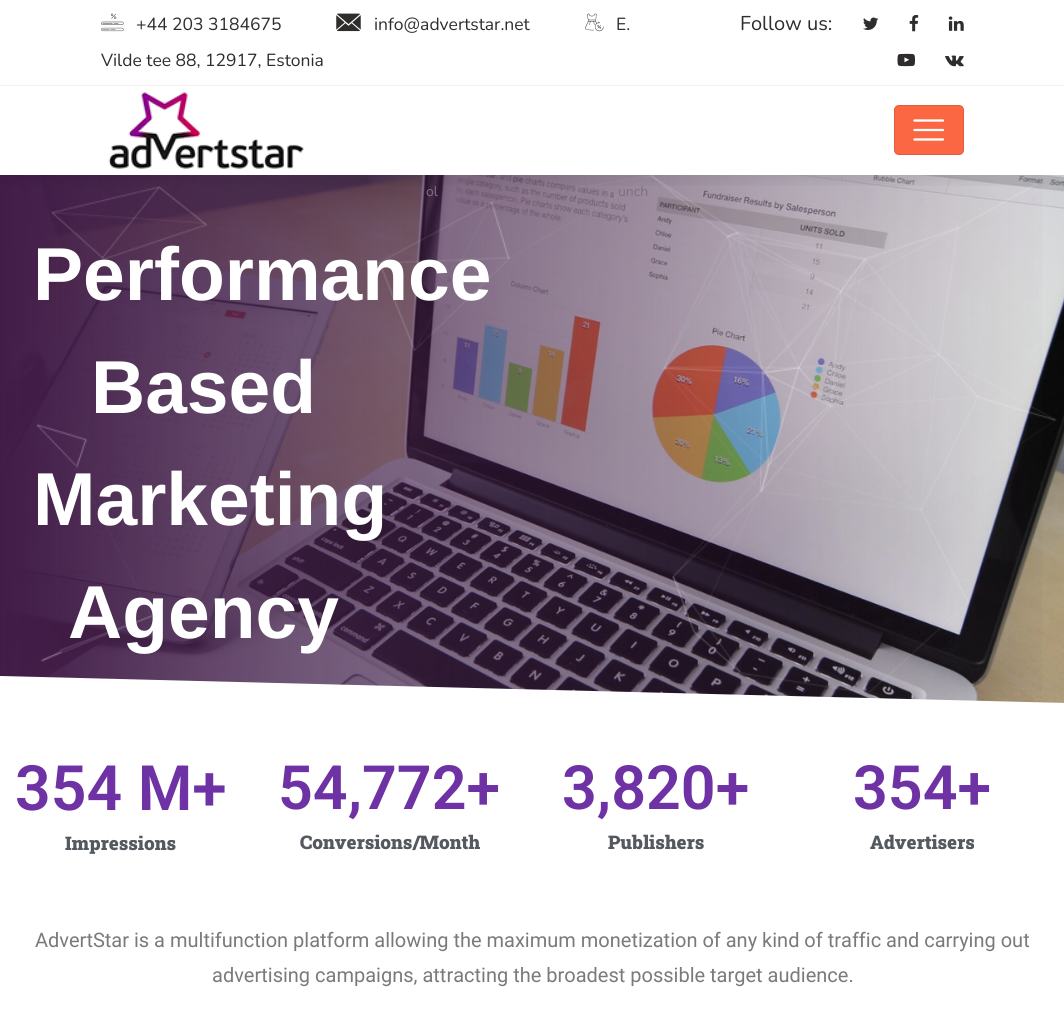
import math
import cairo

surface = cairo.ImageSurface(cairo.FORMAT_RGB24, 1064, 1023)
cr = cairo.Context(surface)
options = cairo.FontOptions()
options.set_hint_metrics(cairo.HINT_METRICS_OFF)
options.set_hint_style(cairo.HINT_STYLE_NONE)
cr.set_font_options(options)
cr.set_miter_limit(4)


def rgb(code):
    cr.set_source_rgb(*(v / 255 for v in bytes.fromhex(code[-6:])))


def rrect(x, y, w, h, r):
    cr.new_sub_path()
    for i, (u, v) in enumerate([(x + w - r, y + h - r), (x + r, y + h - r), (x + r, y + r), (x + w - r, y + r)]):
        cr.arc(u, v, r, i * math.pi / 2, (i + 1) * math.pi / 2)
    cr.close_path()


def soft_shadow(x, y, w, h, r, blur, alpha):
    cr.push_group_with_content(cairo.CONTENT_ALPHA)
    cr.set_operator(cairo.OPERATOR_SOURCE)
    for i in range(15, -16, -2):
        e = blur * i / 6
        if min(w, h) + 2 * e > 0:
            cr.set_source_rgba(0, 0, 0, alpha * math.erfc((i - 1) / 8.5) / 2)
            rrect(x - e, y - e, w + 2 * e, h + 2 * e, max(0, min(r + e + blur * .6, min(w, h) / 2 + e)))
            cr.fill()
    cr.mask(cr.pop_group())


def image(path, x, y, w, h):
    cr.save()
    cr.set_source_surface(cairo.ImageSurface.create_from_png(path), x, y)
    cr.rectangle(x, y, w, h)
    cr.fill()
    cr.restore()


rgb("#ffffff")
cr.paint()
rgb("#f2f2f2")
cr.rectangle(0, 85, 1064, 1)
cr.fill()
image("img/1.png", 101, 13, 23, 19)
image("img/2.png", 336, 13, 25, 19)
image("img/3.png", 585, 13, 19, 19)
image("img/4.png", 863, 17, 16, 13)
image("img/5.png", 909, 15, 10, 17)
image("img/6.png", 948, 16, 16, 15)
image("img/7.png", 897, 53, 18, 14)
image("img/8.png", 945, 55, 19, 12)
image("img/10.png", 6, 175, 1058, 528)
gradient = cairo.LinearGradient(0, 441, 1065, 441)
gradient.add_color_stop_rgba(0, 0.255, 0.11, 0.282, 1)
gradient.add_color_stop_rgba(1, 0.255, 0.11, 0.282, 0)
cr.set_source(gradient)
cr.rectangle(0, 175, 1042, 528)
cr.fill()
image("img/11.png", 36, 175, 1021, 519)
cr.save()
cr.rectangle(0, 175, 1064, 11)
cr.clip()
rgb("#000000")
soft_shadow(0, 95, 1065, 89, 0, 5, 0.06)
cr.restore()
image("img/9.png", 108, 92, 196, 77)
rgb("#fa6742")
rrect(894, 105, 70, 50, 5)
cr.fill()
rrect(894.5, 105.5, 69, 49, 4.5)
cr.set_source_rgba(0, 0, 0, 0.1)
cr.set_line_width(1)
cr.stroke()
cr.new_path()
cr.move_to(914.5, 120.5)
cr.line_to(943, 120.5)
cr.move_to(914.5, 130)
cr.line_to(943, 130)
cr.move_to(914.5, 139.5)
cr.line_to(943, 139.5)
rgb("#ffffff")
cr.set_line_width(2.3)
cr.set_line_cap(cairo.LINE_CAP_ROUND)
cr.stroke()
cr.new_path()
cr.move_to(0, 676)
cr.line_to(0, 708)
cr.line_to(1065, 708)
cr.line_to(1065, 703)
cr.close_path()
cr.fill()
cr.select_font_face("Nunito")
cr.set_font_size(17.5)
rgb("#2f2c2c")
for x, y, s in [
    (136, 30, "+44 203 3184675"),
    (374, 30, "info@advertstar.net"),
    (616, 30, "E."),
    (101, 66, "Vilde tee 88, 12917, Estonia"),
]:
    cr.move_to(x, y)
    cr.show_text(s)
cr.set_font_size(20)
cr.move_to(740, 30)
cr.show_text("Follow us:")
cr.set_font_size(14)
rgb("#806c82")
cr.move_to(426, 196)
cr.show_text("ol")
cr.move_to(618, 196)
cr.show_text("unch")
cr.select_font_face("Liberation Sans", cairo.FONT_SLANT_NORMAL, cairo.FONT_WEIGHT_BOLD)
cr.set_font_size(75)
rgb("#ffffff")
for x, y, s in [
    (33, 300, "Performance"),
    (91, 413, "Based"),
    (33, 525, "Marketing"),
    (68, 638, "Agency"),
]:
    cr.move_to(x, y)
    cr.show_text(s)
cr.select_font_face("Roboto SemiBold")
cr.set_font_size(62.5)
rgb("#6e32a5")
cr.move_to(15, 810)
cr.show_text("354 M+")
cr.select_font_face("Roboto Slab Black")
cr.set_font_size(18.75)
rgb("#54595f")
cr.move_to(65, 850)
cr.show_text("Impressions")
cr.select_font_face("Roboto SemiBold")
cr.set_font_size(61)
rgb("#6e32a5")
cr.move_to(278, 809)
cr.show_text("54,772+")
cr.select_font_face("Roboto Slab Black")
cr.set_font_size(18.75)
rgb("#54595f")
cr.move_to(300, 849)
cr.show_text("Conversions/Month")
cr.select_font_face("Roboto SemiBold")
cr.set_font_size(61)
rgb("#6e32a5")
cr.move_to(562, 809)
cr.show_text("3,820+")
cr.select_font_face("Roboto Slab Black")
cr.set_font_size(18.75)
rgb("#54595f")
cr.move_to(608, 849)
cr.show_text("Publishers")
cr.select_font_face("Roboto SemiBold")
cr.set_font_size(61)
rgb("#6e32a5")
cr.move_to(853, 809)
cr.show_text("354+")
cr.select_font_face("Roboto Slab Black")
cr.set_font_size(18.75)
rgb("#54595f")
cr.move_to(870, 849)
cr.show_text("Advertisers")
cr.select_font_face("Roboto")
cr.set_font_size(20)
rgb("#7a7a7a")
cr.move_to(35, 947)
cr.show_text("AdvertStar is a multifunction platform allowing the maximum monetization of any kind of traffic and carrying out")
cr.move_to(212, 982)
cr.show_text("advertising campaigns, attracting the broadest possible target audience.")
surface.write_to_png("page.png")
